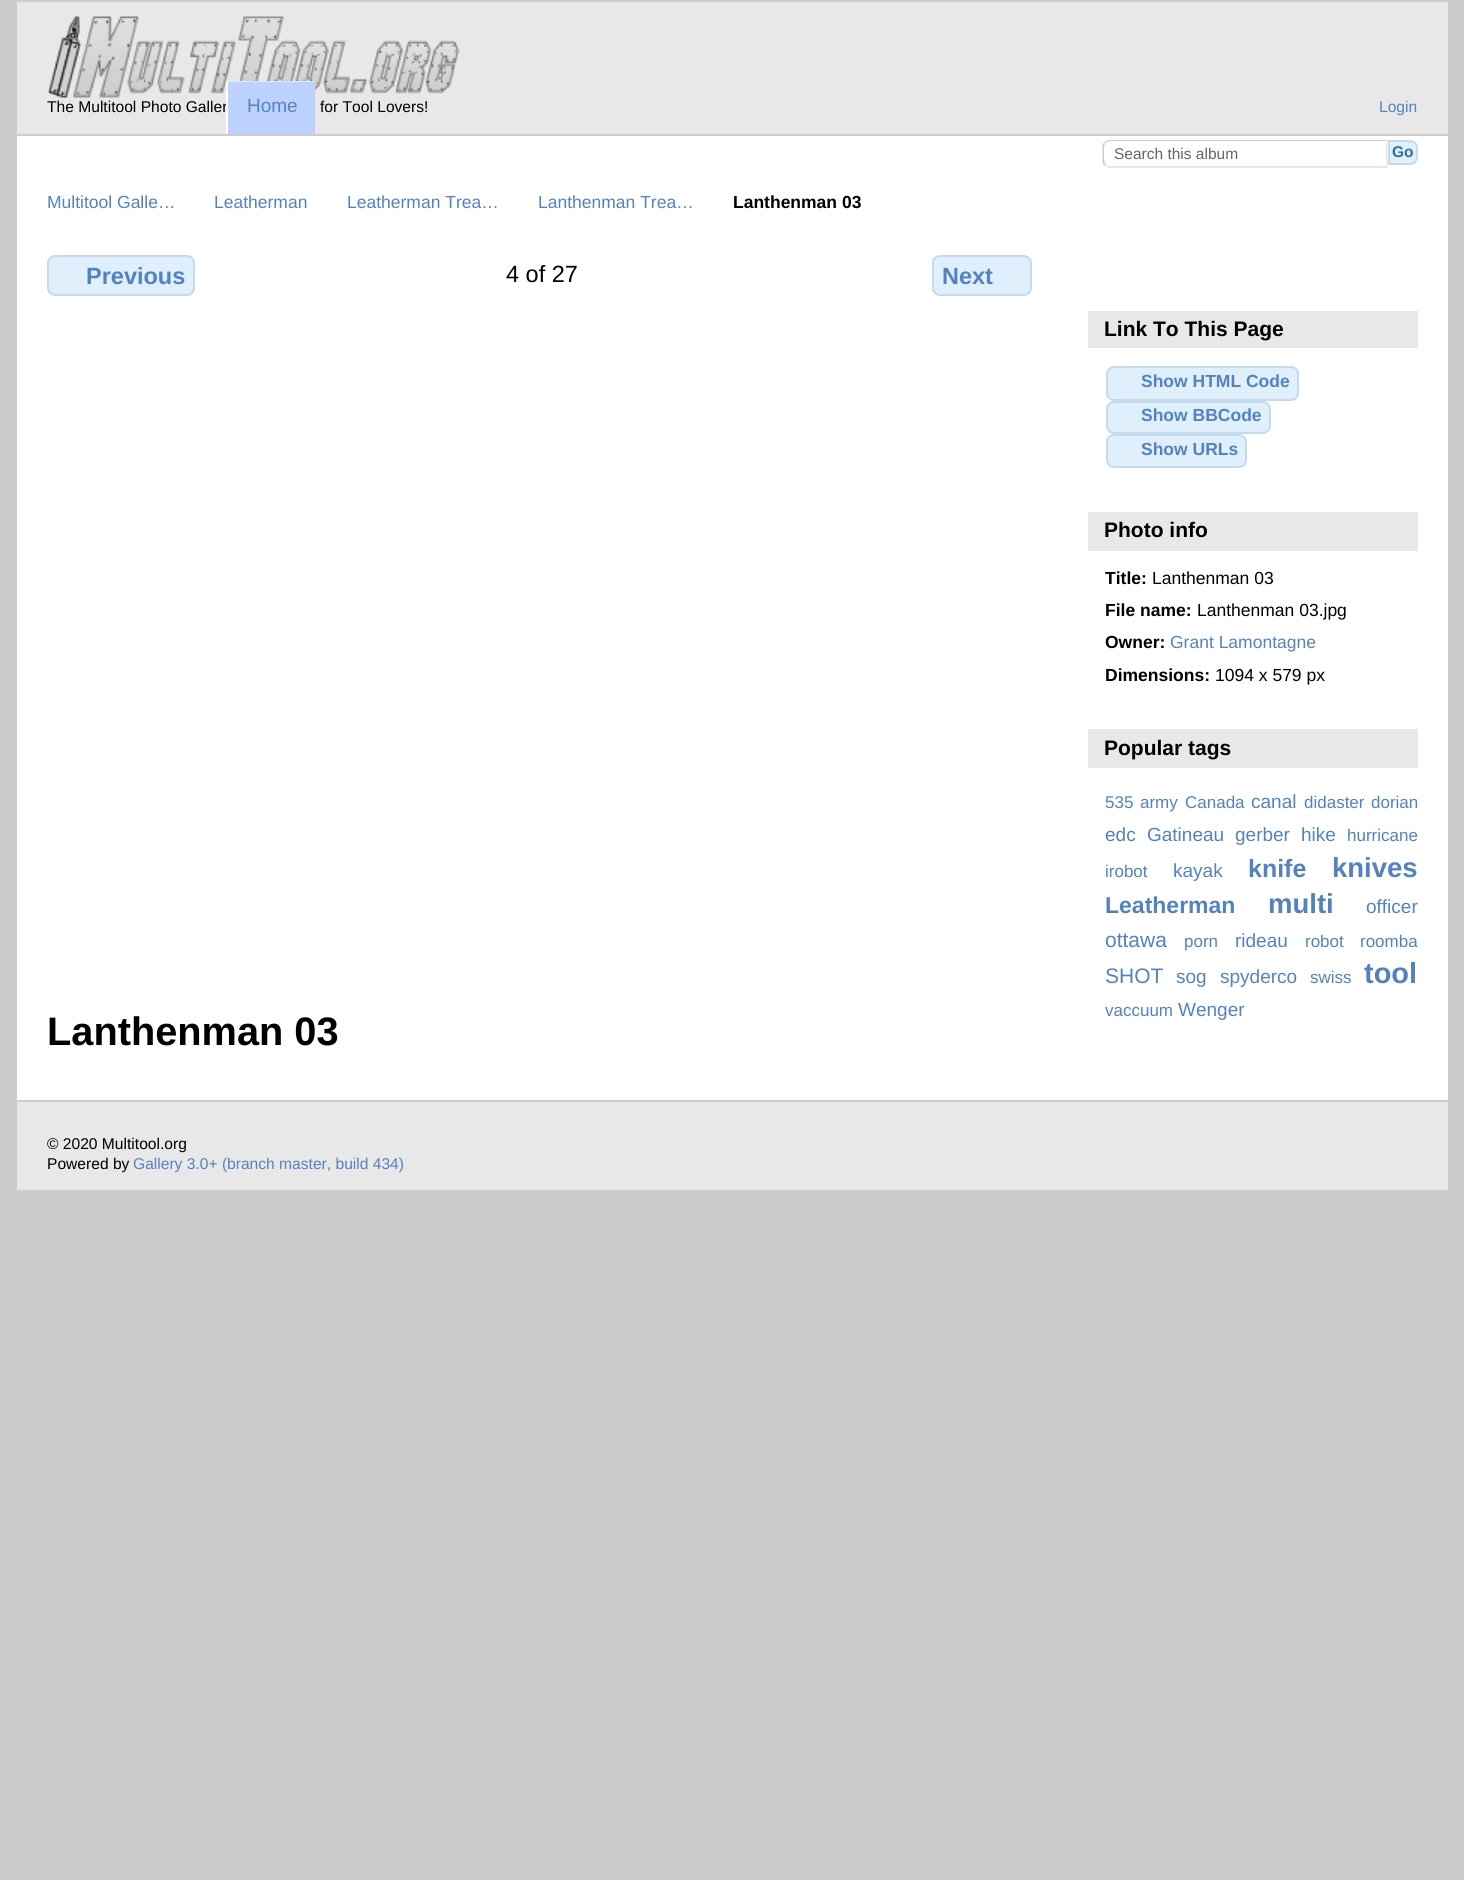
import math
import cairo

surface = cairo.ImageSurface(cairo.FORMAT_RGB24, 1464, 1880)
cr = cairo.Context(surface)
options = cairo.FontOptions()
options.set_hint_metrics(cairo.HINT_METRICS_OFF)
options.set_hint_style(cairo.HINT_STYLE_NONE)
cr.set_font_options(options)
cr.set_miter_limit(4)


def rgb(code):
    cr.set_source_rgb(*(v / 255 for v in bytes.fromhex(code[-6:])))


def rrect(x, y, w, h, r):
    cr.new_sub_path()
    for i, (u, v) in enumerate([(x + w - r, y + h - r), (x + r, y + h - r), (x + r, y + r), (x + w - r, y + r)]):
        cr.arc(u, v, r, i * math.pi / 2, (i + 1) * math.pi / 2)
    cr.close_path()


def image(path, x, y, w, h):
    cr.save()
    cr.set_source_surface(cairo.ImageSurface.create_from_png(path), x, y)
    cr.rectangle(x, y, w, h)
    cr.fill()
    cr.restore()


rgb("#cccccc")
cr.paint()
rgb("#ffffff")
cr.rectangle(17, 136, 1431, 964)
cr.fill()
rgb("#e8e8e8")
cr.rectangle(17, 2, 1431, 132)
cr.fill()
image("img/1.png", 47, 16, 413, 82)
rgb("#bdd2ff")
cr.rectangle(227, 81, 88, 53)
cr.fill()
rgb("#dee9ff")
cr.new_path()
cr.move_to(226, 81)
cr.line_to(315, 81)
cr.line_to(315, 82)
cr.line_to(228, 82)
cr.close_path()
cr.fill()
rgb("#cccccc")
cr.new_path()
cr.move_to(1110, 140)
cr.curve_to(1108, 140, 1106, 141, 1105, 142)
cr.line_to(1106, 143)
cr.curve_to(1107, 142, 1108, 141, 1110, 141)
cr.line_to(1386, 141)
cr.line_to(1387, 140)
cr.close_path()
cr.fill()
rgb("#e8e8e8")
cr.new_path()
cr.move_to(1387.5, 140)
cr.line_to(1387.5, 168)
cr.line_to(1385.5, 166)
cr.line_to(1386, 166)
cr.line_to(1386, 141)
cr.line_to(1387, 140)
cr.close_path()
cr.fill()
cr.new_path()
cr.move_to(1388, 168)
cr.line_to(1386, 166)
cr.line_to(1109, 166)
cr.curve_to(1108, 166, 1107, 165, 1106, 165)
cr.line_to(1105, 166)
cr.curve_to(1106, 167, 1108, 168, 1110, 168)
cr.close_path()
cr.fill()
rgb("#cccccc")
cr.new_path()
cr.move_to(1102.5, 144.5)
cr.curve_to(1103, 143.5, 1104, 142.5, 1105, 142)
cr.line_to(1105.5, 142.5)
cr.curve_to(1104.5, 144, 1104.5, 145.5, 1104, 147)
cr.curve_to(1104, 149.5, 1103.5, 159, 1104.5, 161.5)
cr.curve_to(1104.5, 162.5, 1105, 163.5, 1106, 164.5)
cr.line_to(1104.5, 166)
cr.curve_to(1103.5, 165, 1103, 164, 1102.5, 163)
cr.close_path()
cr.fill()
rgb("#dfeffc")
cr.new_path()
cr.move_to(1389, 141)
cr.line_to(1410, 141)
cr.curve_to(1414, 141, 1417, 144, 1417, 148)
cr.line_to(1417, 157)
cr.curve_to(1417, 161, 1414, 164, 1410, 164)
cr.line_to(1389, 164)
cr.close_path()
cr.fill_preserve()
rgb("#c5dbec")
cr.stroke()
rgb("#dfeffc")
rrect(48, 256, 146, 39, 7)
cr.fill_preserve()
rgb("#c5dbec")
cr.stroke()
rgb("#dfeffc")
rrect(933, 256, 98, 39, 7)
cr.fill_preserve()
rgb("#c5dbec")
cr.stroke()
rgb("#e8e8e8")
cr.rectangle(1088, 311, 330, 37)
cr.fill()
rgb("#dfeffc")
rrect(1107, 367, 191, 33, 7)
cr.fill_preserve()
rgb("#c5dbec")
cr.stroke()
rgb("#dfeffc")
rrect(1107, 402, 163, 31, 7)
cr.fill_preserve()
rgb("#c5dbec")
cr.stroke()
rgb("#dfeffc")
rrect(1107, 435, 139, 32, 7)
cr.fill_preserve()
rgb("#c5dbec")
cr.stroke()
for x, y, w, h, color in [
    (1088, 512, 330, 39, "#e8e8e8"),
    (1088, 729, 330, 39, "#e8e8e8"),
    (17, 1102, 1431, 88, "#e8e8e8"),
]:
    rgb(color)
    cr.rectangle(x, y, w, h)
    cr.fill()
cr.select_font_face("Liberation Sans")
cr.set_font_size(15.6)
rgb("#000000")
cr.move_to(47, 112)
cr.show_text("The Multitool Photo Galler")
rgb("#ffffff")
cr.new_path()
cr.move_to(226, 134)
cr.line_to(226, 81)
cr.line_to(228, 82)
cr.line_to(228, 134)
cr.close_path()
cr.fill()
cr.set_font_size(19)
rgb("#5382bf")
cr.move_to(247, 112)
cr.show_text("Home")
cr.set_font_size(15.6)
rgb("#000000")
cr.move_to(320, 112)
cr.show_text("for Tool Lovers!")
rgb("#5382bf")
cr.move_to(1379, 112)
cr.show_text("Login")
cr.set_font_size(15.5)
rgb("#666666")
cr.move_to(1114, 159)
cr.show_text("Search this album")
cr.select_font_face("Liberation Sans", cairo.FONT_SLANT_NORMAL, cairo.FONT_WEIGHT_BOLD)
rgb("#2e6e9e")
cr.move_to(1392, 157)
cr.show_text("Go")
cr.select_font_face("Liberation Sans")
cr.set_font_size(17.5)
rgb("#5382bf")
for x, y, s in [
    (47, 208, "Multitool Galle…"),
    (214, 208, "Leatherman"),
    (347, 208, "Leatherman Trea…"),
    (538, 208, "Lanthenman Trea…"),
]:
    cr.move_to(x, y)
    cr.show_text(s)
cr.select_font_face("Liberation Sans", cairo.FONT_SLANT_NORMAL, cairo.FONT_WEIGHT_BOLD)
rgb("#000000")
cr.move_to(733, 208)
cr.show_text("Lanthenman 03")
cr.set_font_size(23.5)
rgb("#5382bf")
cr.move_to(86, 284)
cr.show_text("Previous")
cr.select_font_face("Liberation Sans")
rgb("#000000")
cr.move_to(506, 282)
cr.show_text("4 of 27")
cr.select_font_face("Liberation Sans", cairo.FONT_SLANT_NORMAL, cairo.FONT_WEIGHT_BOLD)
rgb("#5382bf")
cr.move_to(942, 284)
cr.show_text("Next")
cr.set_font_size(39.75)
rgb("#000000")
cr.move_to(47, 1045)
cr.show_text("Lanthenman 03")
cr.set_font_size(21)
cr.move_to(1104, 336)
cr.show_text("Link To This Page")
cr.set_font_size(17.5)
rgb("#5382bf")
for x, y, s in [
    (1141, 387, "Show HTML Code"),
    (1141, 421, "Show BBCode"),
    (1141, 455, "Show URLs"),
]:
    cr.move_to(x, y)
    cr.show_text(s)
cr.set_font_size(21)
rgb("#000000")
cr.move_to(1104, 537)
cr.show_text("Photo info")
cr.set_font_size(17.5)
cr.move_to(1105, 584)
cr.show_text("Title:")
cr.select_font_face("Liberation Sans")
cr.move_to(1152, 584)
cr.show_text("Lanthenman 03")
cr.select_font_face("Liberation Sans", cairo.FONT_SLANT_NORMAL, cairo.FONT_WEIGHT_BOLD)
cr.move_to(1105, 616)
cr.show_text("File name:")
cr.select_font_face("Liberation Sans")
cr.move_to(1197, 616)
cr.show_text("Lanthenman 03.jpg")
cr.select_font_face("Liberation Sans", cairo.FONT_SLANT_NORMAL, cairo.FONT_WEIGHT_BOLD)
cr.move_to(1105, 648)
cr.show_text("Owner:")
cr.select_font_face("Liberation Sans")
rgb("#5382bf")
cr.move_to(1170, 648)
cr.show_text("Grant Lamontagne")
cr.select_font_face("Liberation Sans", cairo.FONT_SLANT_NORMAL, cairo.FONT_WEIGHT_BOLD)
rgb("#000000")
cr.move_to(1105, 681)
cr.show_text("Dimensions:")
cr.select_font_face("Liberation Sans")
cr.move_to(1215, 681)
cr.show_text("1094 x 579 px")
cr.select_font_face("Liberation Sans", cairo.FONT_SLANT_NORMAL, cairo.FONT_WEIGHT_BOLD)
cr.set_font_size(21)
cr.move_to(1104, 755)
cr.show_text("Popular tags")
cr.select_font_face("Liberation Sans")
cr.set_font_size(17)
rgb("#5382bf")
for x, y, s in [
    (1105, 808, "535"),
    (1140, 808, "army"),
    (1185, 808, "Canada"),
]:
    cr.move_to(x, y)
    cr.show_text(s)
cr.set_font_size(19)
cr.move_to(1251, 808)
cr.show_text("canal")
cr.set_font_size(17)
cr.move_to(1304, 808)
cr.show_text("didaster")
cr.move_to(1371, 808)
cr.show_text("dorian")
cr.set_font_size(19)
for x, y, s in [
    (1105, 841, "edc"),
    (1147, 841, "Gatineau"),
    (1235, 841, "gerber"),
    (1301, 841, "hike"),
]:
    cr.move_to(x, y)
    cr.show_text(s)
cr.set_font_size(17)
cr.move_to(1347, 841)
cr.show_text("hurricane")
cr.move_to(1105, 877)
cr.show_text("irobot")
cr.set_font_size(19)
cr.move_to(1173, 877)
cr.show_text("kayak")
cr.select_font_face("Liberation Sans", cairo.FONT_SLANT_NORMAL, cairo.FONT_WEIGHT_BOLD)
cr.set_font_size(25)
cr.move_to(1248, 877)
cr.show_text("knife")
cr.set_font_size(27.5)
cr.move_to(1332, 877)
cr.show_text("knives")
cr.set_font_size(23)
cr.move_to(1105, 913)
cr.show_text("Leatherman")
cr.set_font_size(27.5)
cr.move_to(1268, 913)
cr.show_text("multi")
cr.select_font_face("Liberation Sans")
cr.set_font_size(19)
cr.move_to(1366, 913)
cr.show_text("officer")
cr.set_font_size(21)
cr.move_to(1105, 947)
cr.show_text("ottawa")
cr.set_font_size(17)
cr.move_to(1184, 947)
cr.show_text("porn")
cr.set_font_size(19)
cr.move_to(1235, 947)
cr.show_text("rideau")
cr.set_font_size(17)
cr.move_to(1305, 947)
cr.show_text("robot")
cr.move_to(1360, 947)
cr.show_text("roomba")
cr.set_font_size(21)
cr.move_to(1105, 983)
cr.show_text("SHOT")
cr.set_font_size(19)
cr.move_to(1176, 983)
cr.show_text("sog")
cr.move_to(1220, 983)
cr.show_text("spyderco")
cr.set_font_size(17)
cr.move_to(1310, 983)
cr.show_text("swiss")
cr.select_font_face("Liberation Sans", cairo.FONT_SLANT_NORMAL, cairo.FONT_WEIGHT_BOLD)
cr.set_font_size(29)
cr.move_to(1364, 983)
cr.show_text("tool")
cr.select_font_face("Liberation Sans")
cr.set_font_size(17)
cr.move_to(1105, 1016)
cr.show_text("vaccuum")
cr.set_font_size(19)
cr.move_to(1178, 1016)
cr.show_text("Wenger")
cr.set_font_size(15.6)
rgb("#000000")
cr.move_to(47, 1149)
cr.show_text("© 2020 Multitool.org")
cr.move_to(47, 1169)
cr.show_text("Powered by")
rgb("#5382bf")
cr.move_to(133, 1169)
cr.show_text("Gallery 3.0+ (branch master, build 434)")
surface.write_to_png("page.png")
